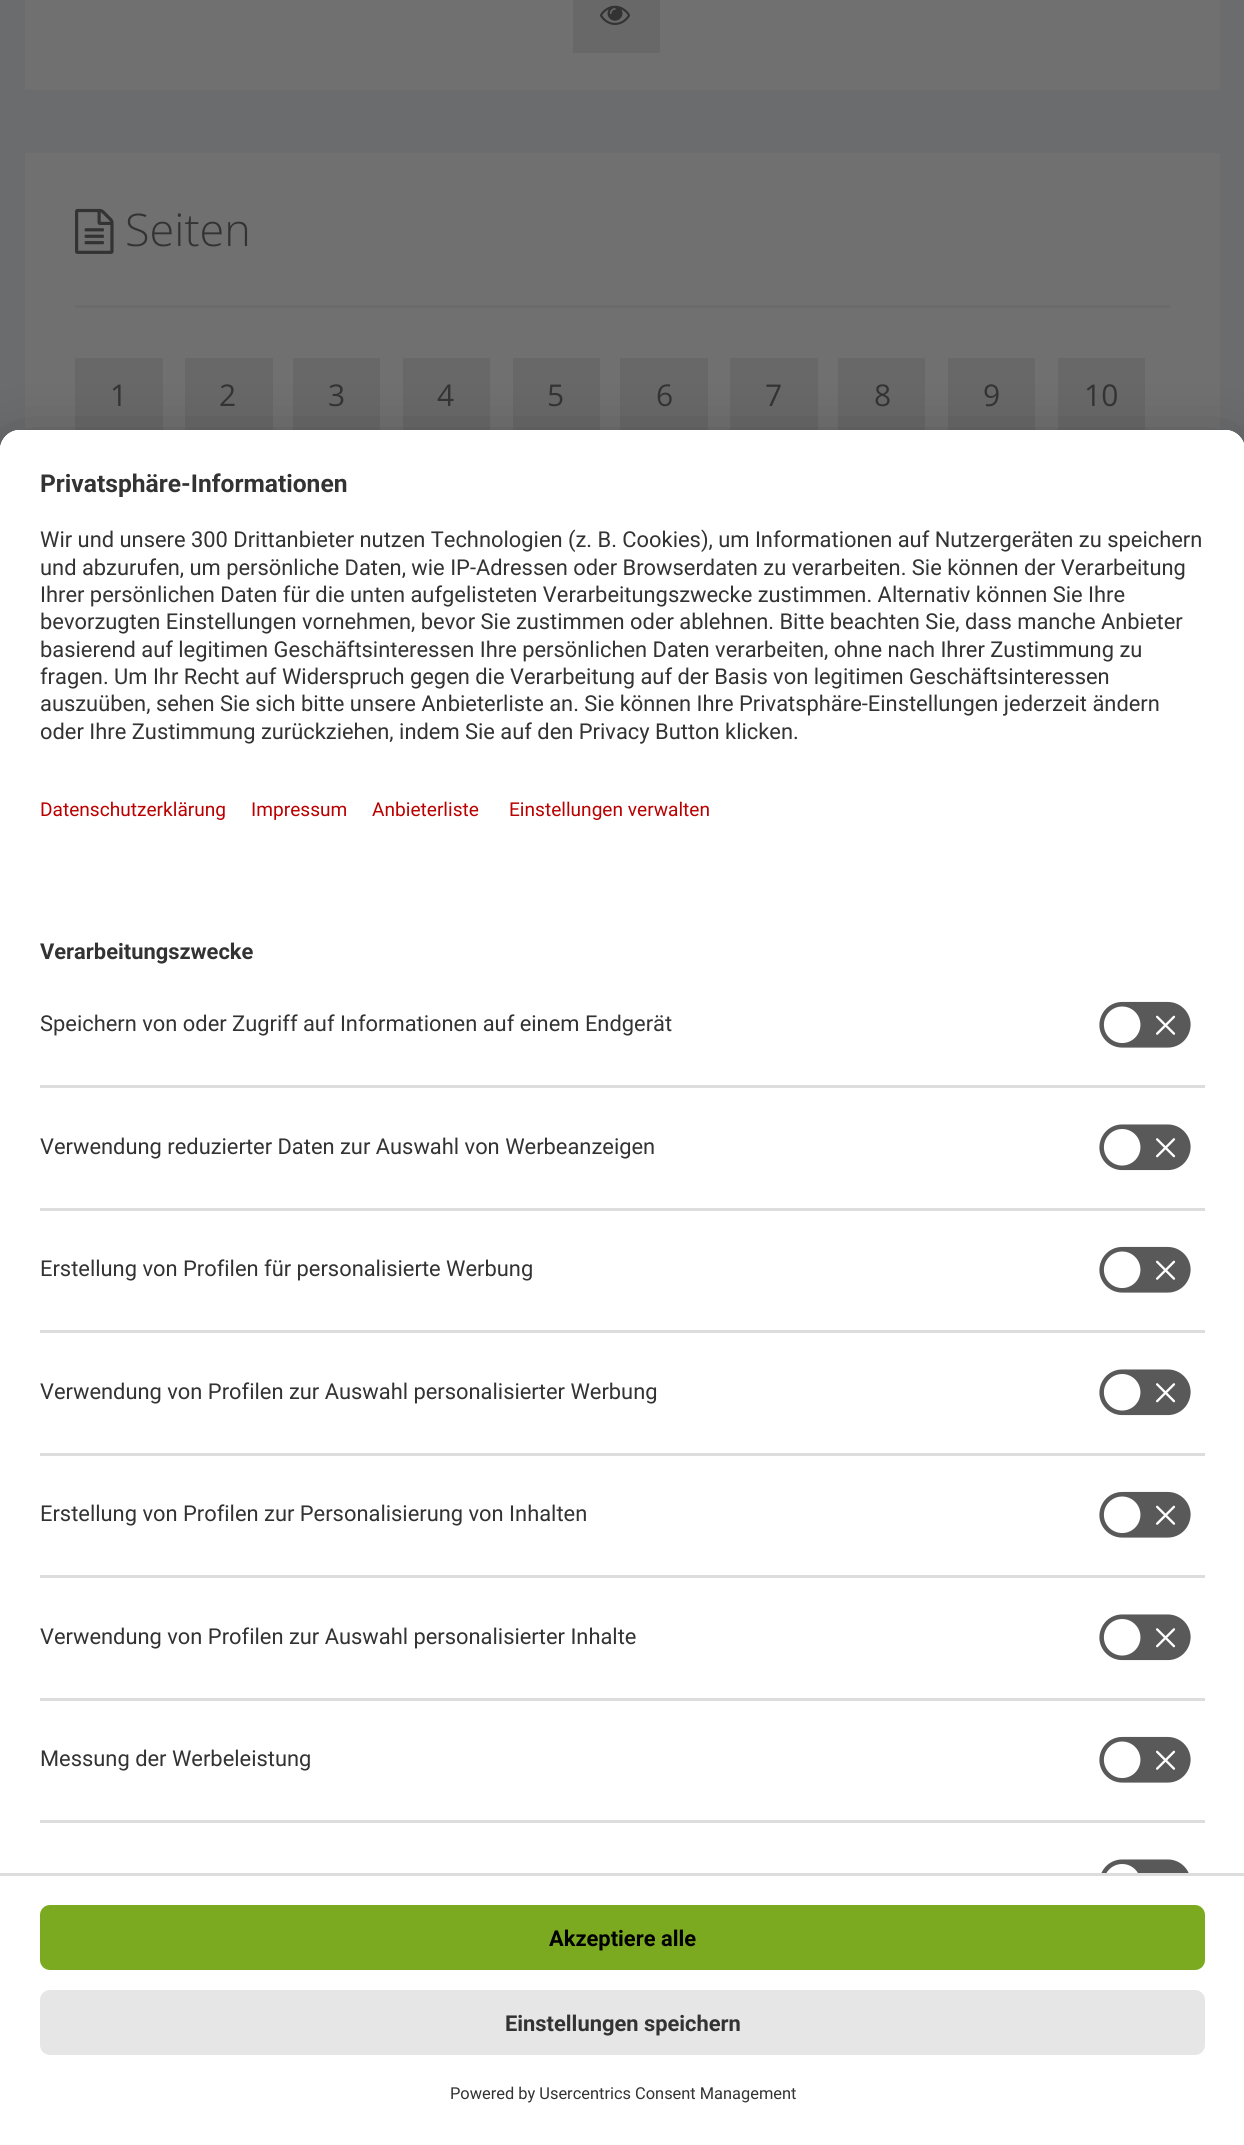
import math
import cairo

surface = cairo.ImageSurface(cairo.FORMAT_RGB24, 1244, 2145)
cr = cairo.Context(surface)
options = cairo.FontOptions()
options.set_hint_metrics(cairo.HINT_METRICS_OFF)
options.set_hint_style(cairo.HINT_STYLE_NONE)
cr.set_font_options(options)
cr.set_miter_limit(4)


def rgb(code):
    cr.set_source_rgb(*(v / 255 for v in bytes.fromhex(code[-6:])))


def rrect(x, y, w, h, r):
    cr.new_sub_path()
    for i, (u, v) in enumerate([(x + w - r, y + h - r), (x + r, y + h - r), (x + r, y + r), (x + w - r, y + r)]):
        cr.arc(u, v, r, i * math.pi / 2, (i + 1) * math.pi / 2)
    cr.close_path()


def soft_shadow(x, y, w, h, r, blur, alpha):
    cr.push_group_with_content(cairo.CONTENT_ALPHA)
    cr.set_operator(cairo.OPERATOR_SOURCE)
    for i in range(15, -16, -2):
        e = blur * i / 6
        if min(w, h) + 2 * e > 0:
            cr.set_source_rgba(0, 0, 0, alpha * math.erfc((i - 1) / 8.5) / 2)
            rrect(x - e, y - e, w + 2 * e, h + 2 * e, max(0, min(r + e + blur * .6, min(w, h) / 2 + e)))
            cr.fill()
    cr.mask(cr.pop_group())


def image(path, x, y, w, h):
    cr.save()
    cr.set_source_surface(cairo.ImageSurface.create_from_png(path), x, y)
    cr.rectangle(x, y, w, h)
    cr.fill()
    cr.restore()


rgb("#6b6c6d")
cr.paint()
rgb("#707070")
cr.rectangle(25, 0, 1195, 90)
cr.fill()
rgb("#686868")
cr.rectangle(573, 0, 87, 53)
cr.fill()
image("img/1.png", 600, 5, 30, 20)
rgb("#707070")
cr.rectangle(25, 153, 1195, 277)
cr.fill()
image("img/2.png", 75, 208, 39, 46)
for x, y, w, h, color in [
    (75, 305, 1095, 3, "#6b6b6b"),
    (75, 358, 88, 72, "#686868"),
    (185, 358, 88, 72, "#686868"),
    (293, 358, 87, 72, "#686868"),
    (403, 358, 87, 72, "#686868"),
    (513, 358, 87, 72, "#686868"),
    (620, 358, 88, 72, "#686868"),
    (730, 358, 88, 72, "#686868"),
    (838, 358, 87, 72, "#686868"),
    (948, 358, 87, 72, "#686868"),
    (1058, 358, 87, 72, "#686868"),
]:
    rgb(color)
    cr.rectangle(x, y, w, h)
    cr.fill()
rgb("#000000")
soft_shadow(0, 480, 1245, 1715, 20, 35, 0.3)
soft_shadow(0, 443, 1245, 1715, 20, 32.5, 0.22)
rgb("#ffffff")
cr.new_path()
cr.move_to(20, 430)
cr.line_to(1225, 430)
cr.curve_to(1236, 430, 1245, 439, 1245, 450)
cr.line_to(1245, 2145)
cr.line_to(0, 2145)
cr.line_to(0, 450)
cr.curve_to(0, 439, 9, 430, 20, 430)
cr.close_path()
cr.fill()
cr.new_path()
cr.move_to(20, 430)
cr.line_to(1225, 430)
cr.curve_to(1236, 430, 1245, 439, 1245, 450)
cr.line_to(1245, 1873)
cr.line_to(0, 1873)
cr.line_to(0, 450)
cr.curve_to(0, 439, 9, 430, 20, 430)
cr.close_path()
cr.fill()
cr.new_path()
cr.move_to(20, 430)
cr.line_to(1225, 430)
cr.curve_to(1236, 430, 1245, 439, 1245, 450)
cr.line_to(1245, 910)
cr.line_to(0, 910)
cr.line_to(0, 450)
cr.curve_to(0, 439, 9, 430, 20, 430)
cr.close_path()
cr.fill()
rgb("#dddddd")
cr.rectangle(40, 1085, 1165, 3)
cr.fill()
image("img/3.png", 1099, 1001, 92, 47)
cr.rectangle(40, 1208, 1165, 3)
cr.fill()
image("img/4.png", 1099, 1124, 92, 47)
cr.rectangle(40, 1330, 1165, 3)
cr.fill()
image("img/3.png", 1099, 1246, 92, 47)
cr.rectangle(40, 1453, 1165, 3)
cr.fill()
image("img/4.png", 1099, 1369, 92, 47)
cr.rectangle(40, 1575, 1165, 3)
cr.fill()
image("img/3.png", 1099, 1491, 92, 47)
cr.rectangle(40, 1698, 1165, 3)
cr.fill()
image("img/4.png", 1099, 1614, 92, 47)
cr.rectangle(40, 1820, 1165, 3)
cr.fill()
image("img/3.png", 1099, 1736, 92, 47)
image("img/5.png", 1101, 1859, 88, 14)
cr.rectangle(0, 1873, 1244, 3)
cr.fill()
rgb("#7baa20")
rrect(40, 1905, 1165, 65, 10)
cr.fill()
rgb("#e6e6e6")
rrect(40, 1990, 1165, 65, 10)
cr.fill()
cr.select_font_face("Open Sans Light")
cr.set_font_size(45)
rgb("#333333")
cr.move_to(125, 246)
cr.show_text("Seiten")
cr.select_font_face("Open Sans")
cr.set_font_size(30)
for x, y, s in [
    (110, 406, "1"),
    (219, 406, "2"),
    (328, 406, "3"),
    (437, 406, "4"),
    (547, 406, "5"),
    (656, 406, "6"),
    (765, 406, "7"),
    (874, 406, "8"),
    (983, 406, "9"),
    (1084, 406, "10"),
]:
    cr.move_to(x, y)
    cr.show_text(s)
cr.select_font_face("Roboto", cairo.FONT_SLANT_NORMAL, cairo.FONT_WEIGHT_BOLD)
cr.set_font_size(24.6)
cr.move_to(40, 492)
cr.show_text("Privatsphäre-Informationen")
cr.select_font_face("Roboto")
cr.set_font_size(21.88)
for x, y, s in [
    (40, 547, "Wir und unsere 300 Drittanbieter nutzen Technologien (z. B. Cookies), um Informationen auf Nutzergeräten zu speichern"),
    (40, 575, "und abzurufen, um persönliche Daten, wie IP-Adressen oder Browserdaten zu verarbeiten. Sie können der Verarbeitung"),
    (40, 602, "Ihrer persönlichen Daten für die unten aufgelisteten Verarbeitungszwecke zustimmen. Alternativ können Sie Ihre"),
    (40, 629, "bevorzugten Einstellungen vornehmen, bevor Sie zustimmen oder ablehnen. Bitte beachten Sie, dass manche Anbieter"),
    (40, 657, "basierend auf legitimen Geschäftsinteressen Ihre persönlichen Daten verarbeiten, ohne nach Ihrer Zustimmung zu"),
    (40, 684, "fragen. Um Ihr Recht auf Widerspruch gegen die Verarbeitung auf der Basis von legitimen Geschäftsinteressen"),
    (40, 711, "auszuüben, sehen Sie sich bitte unsere Anbieterliste an. Sie können Ihre Privatsphäre-Einstellungen jederzeit ändern"),
    (40, 739, "oder Ihre Zustimmung zurückziehen, indem Sie auf den Privacy Button klicken."),
]:
    cr.move_to(x, y)
    cr.show_text(s)
cr.set_font_size(19.1)
rgb("#ba0000")
for x, y, s in [
    (40, 816, "Datenschutzerklärung"),
    (251, 816, "Impressum"),
    (372, 816, "Anbieterliste"),
    (509, 816, "Einstellungen verwalten"),
]:
    cr.move_to(x, y)
    cr.show_text(s)
cr.select_font_face("Roboto", cairo.FONT_SLANT_NORMAL, cairo.FONT_WEIGHT_BOLD)
cr.set_font_size(21.88)
rgb("#333333")
cr.move_to(40, 959)
cr.show_text("Verarbeitungszwecke")
cr.select_font_face("Roboto")
for x, y, s in [
    (40, 1031, "Speichern von oder Zugriff auf Informationen auf einem Endgerät"),
    (40, 1154, "Verwendung reduzierter Daten zur Auswahl von Werbeanzeigen"),
    (40, 1276, "Erstellung von Profilen für personalisierte Werbung"),
    (40, 1399, "Verwendung von Profilen zur Auswahl personalisierter Werbung"),
    (40, 1521, "Erstellung von Profilen zur Personalisierung von Inhalten"),
    (40, 1644, "Verwendung von Profilen zur Auswahl personalisierter Inhalte"),
    (40, 1766, "Messung der Werbeleistung"),
]:
    cr.move_to(x, y)
    cr.show_text(s)
cr.select_font_face("Roboto", cairo.FONT_SLANT_NORMAL, cairo.FONT_WEIGHT_BOLD)
rgb("#000000")
cr.move_to(549, 1946)
cr.show_text("Akzeptiere alle")
rgb("#333333")
cr.move_to(505, 2031)
cr.show_text("Einstellungen speichern")
cr.select_font_face("Roboto")
cr.set_font_size(16.4)
cr.move_to(450, 2099)
cr.show_text("Powered by Usercentrics Consent Management")
surface.write_to_png("page.png")
